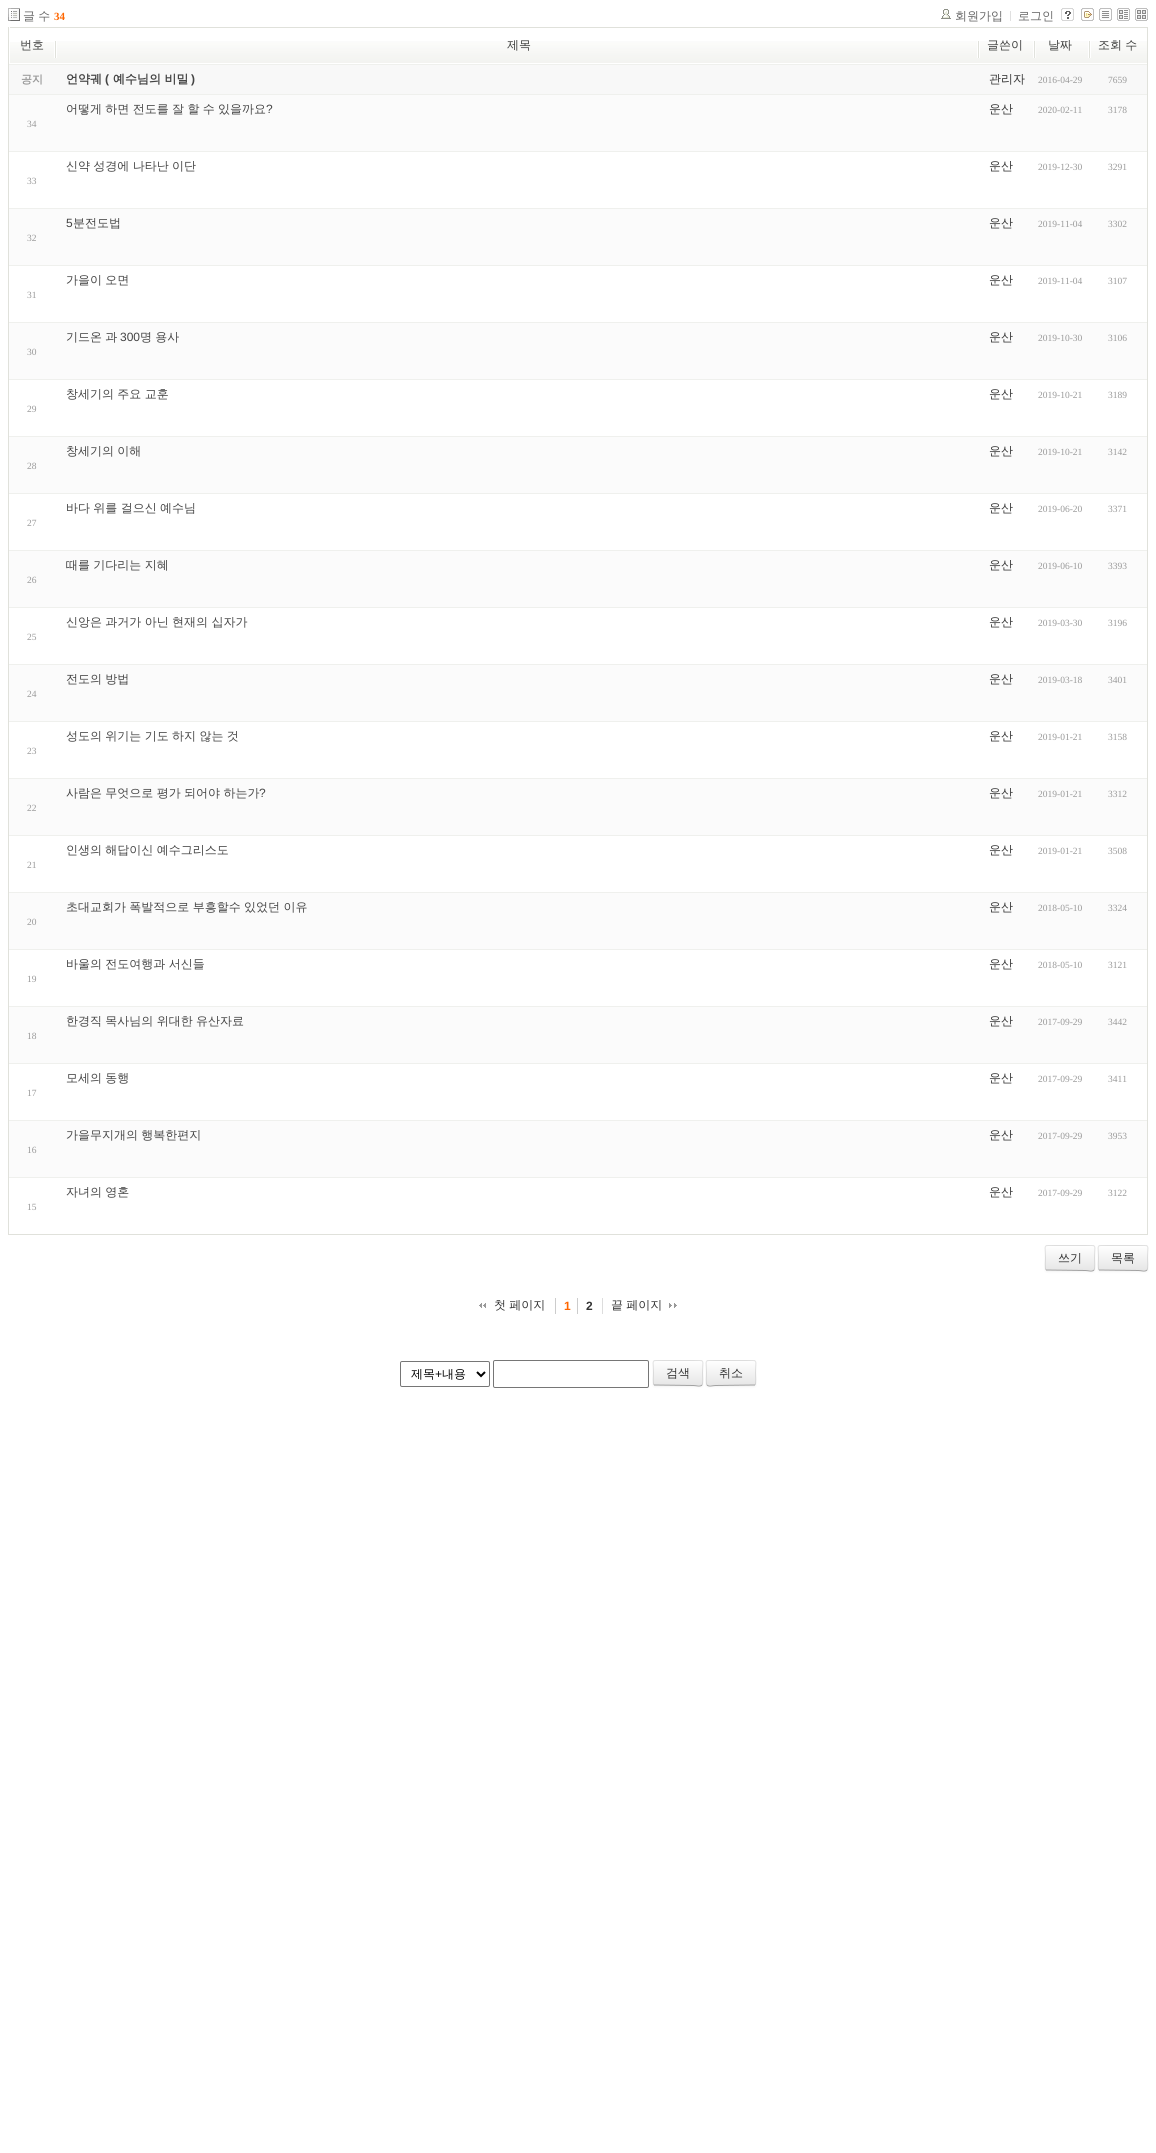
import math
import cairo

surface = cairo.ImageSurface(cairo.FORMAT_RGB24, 1156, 2153)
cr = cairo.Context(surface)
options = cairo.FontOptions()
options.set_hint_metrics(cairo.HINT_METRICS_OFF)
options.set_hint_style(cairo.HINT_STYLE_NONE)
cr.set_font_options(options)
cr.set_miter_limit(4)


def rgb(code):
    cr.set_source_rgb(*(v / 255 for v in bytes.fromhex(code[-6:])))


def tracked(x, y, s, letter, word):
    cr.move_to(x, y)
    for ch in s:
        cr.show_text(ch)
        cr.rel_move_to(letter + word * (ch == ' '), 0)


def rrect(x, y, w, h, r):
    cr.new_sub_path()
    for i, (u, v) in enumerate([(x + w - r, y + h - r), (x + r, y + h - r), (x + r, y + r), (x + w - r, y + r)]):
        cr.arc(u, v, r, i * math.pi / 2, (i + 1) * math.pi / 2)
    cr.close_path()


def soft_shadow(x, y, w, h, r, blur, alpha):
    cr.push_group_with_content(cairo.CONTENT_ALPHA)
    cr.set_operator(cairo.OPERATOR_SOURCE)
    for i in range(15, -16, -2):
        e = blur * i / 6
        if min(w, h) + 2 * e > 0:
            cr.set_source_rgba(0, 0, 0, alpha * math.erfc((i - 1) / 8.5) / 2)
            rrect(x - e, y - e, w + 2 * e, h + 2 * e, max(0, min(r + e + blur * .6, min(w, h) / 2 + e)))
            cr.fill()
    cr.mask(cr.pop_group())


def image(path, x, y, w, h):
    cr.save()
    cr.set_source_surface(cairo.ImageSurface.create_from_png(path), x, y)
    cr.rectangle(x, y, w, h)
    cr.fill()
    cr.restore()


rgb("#ffffff")
cr.paint()
image("img/1.png", 8, 8, 12, 13)
image("img/2.png", 941, 9, 10, 10)
rgb("#e0e0e0")
cr.rectangle(1010, 11, 1, 10)
cr.fill()
image("img/3.png", 1061, 8, 13, 13)
image("img/4.png", 1081, 8, 13, 13)
image("img/5.png", 1099, 8, 13, 13)
image("img/6.png", 1117, 8, 13, 13)
image("img/7.png", 1135, 8, 13, 13)
for x, y, w, h, color in [
    (1147, 27, 1, 1208, "#e0e1db"),
    (8, 1234, 1140, 1, "#e0e1db"),
    (8, 27, 1, 1208, "#e0e1db"),
]:
    rgb(color)
    cr.rectangle(x, y, w, h)
    cr.fill()
image("img/8.png", 10, 42, 44, 21)
cr.rectangle(9, 27, 1138, 1)
cr.fill()
rgb("#ffffff")
cr.rectangle(9, 27, 1, 1)
cr.fill()
image("img/9.png", 54, 41, 923, 22)
image("img/10.png", 977, 41, 56, 22)
image("img/11.png", 1033, 41, 55, 22)
image("img/12.png", 1088, 41, 59, 22)
for x, y, w, h, color in [
    (9, 65, 1138, 29, "#f8f8f8"),
    (9, 64, 1138, 1, "#eff0ed"),
    (9, 95, 1138, 56, "#fbfbfb"),
    (9, 94, 1138, 1, "#eff0ed"),
    (9, 151, 1138, 1, "#eff0ed"),
    (9, 209, 1138, 56, "#fbfbfb"),
    (9, 208, 1138, 1, "#eff0ed"),
    (9, 265, 1138, 1, "#eff0ed"),
    (9, 323, 1138, 56, "#fbfbfb"),
    (9, 322, 1138, 1, "#eff0ed"),
    (9, 379, 1138, 1, "#eff0ed"),
    (9, 437, 1138, 56, "#fbfbfb"),
    (9, 436, 1138, 1, "#eff0ed"),
    (9, 493, 1138, 1, "#eff0ed"),
    (9, 551, 1138, 56, "#fbfbfb"),
    (9, 550, 1138, 1, "#eff0ed"),
    (9, 607, 1138, 1, "#eff0ed"),
    (9, 665, 1138, 56, "#fbfbfb"),
    (9, 664, 1138, 1, "#eff0ed"),
    (9, 721, 1138, 1, "#eff0ed"),
    (9, 779, 1138, 56, "#fbfbfb"),
    (9, 778, 1138, 1, "#eff0ed"),
    (9, 835, 1138, 1, "#eff0ed"),
    (9, 893, 1138, 56, "#fbfbfb"),
    (9, 892, 1138, 1, "#eff0ed"),
    (9, 949, 1138, 1, "#eff0ed"),
    (9, 1007, 1138, 56, "#fbfbfb"),
    (9, 1006, 1138, 1, "#eff0ed"),
    (9, 1063, 1138, 1, "#eff0ed"),
    (9, 1121, 1138, 56, "#fbfbfb"),
    (9, 1120, 1138, 1, "#eff0ed"),
    (9, 1177, 1138, 1, "#eff0ed"),
]:
    rgb(color)
    cr.rectangle(x, y, w, h)
    cr.fill()
rgb("#000000")
soft_shadow(1045, 1246, 50, 26, 2, 1, 0.05)
rgb("#f5f5f5")
rrect(1045, 1245, 50, 26, 2)
cr.fill()
cr.save()
rrect(1045, 1245, 50, 26, 2)
cr.clip()
gradient = cairo.LinearGradient(1070, 1246, 1070, 1270)
gradient.add_color_stop_rgba(0, 1, 1, 1, 1)
gradient.add_color_stop_rgba(1, 0.902, 0.902, 0.902, 1)
cr.set_source(gradient)
cr.rectangle(1045, 1246, 50, 24)
cr.fill()
cr.restore()
rgb("#fefefe")
cr.new_path()
cr.move_to(1047, 1247)
cr.line_to(1093, 1247)
cr.line_to(1094, 1248)
cr.curve_to(1094, 1244, 1091, 1246, 1085, 1246)
cr.line_to(1055, 1246)
cr.curve_to(1048, 1246, 1046, 1244, 1046, 1249)
cr.close_path()
cr.fill()
cr.new_path()
cr.move_to(1094, 1270)
cr.curve_to(1092, 1272, 1088.5, 1270.5, 1085.5, 1270.5)
cr.line_to(1046, 1270)
rgb("#a2a2a2")
cr.set_line_width(1)
cr.stroke()
cr.new_path()
cr.move_to(1046, 1270)
cr.curve_to(1044.5, 1268.5, 1045.5, 1260, 1045.5, 1258)
cr.curve_to(1045.5, 1244, 1042.5, 1245.5, 1054.5, 1245.5)
cr.line_to(1085.5, 1245.5)
cr.curve_to(1097.5, 1245.5, 1094.5, 1244, 1094.5, 1258)
cr.curve_to(1094.5, 1260, 1095.5, 1268.5, 1094, 1270)
cr.set_source_rgba(0, 0, 0, 0.1)
cr.stroke()
rgb("#000000")
soft_shadow(1098, 1246, 50, 26, 2, 1, 0.05)
rgb("#f5f5f5")
rrect(1098, 1245, 50, 26, 2)
cr.fill()
cr.save()
rrect(1098, 1245, 50, 26, 2)
cr.clip()
gradient = cairo.LinearGradient(1123, 1246, 1123, 1270)
gradient.add_color_stop_rgba(0, 1, 1, 1, 1)
gradient.add_color_stop_rgba(1, 0.902, 0.902, 0.902, 1)
cr.set_source(gradient)
cr.rectangle(1098, 1246, 50, 24)
cr.fill()
cr.restore()
rgb("#fefefe")
cr.new_path()
cr.move_to(1100, 1247)
cr.line_to(1146, 1247)
cr.line_to(1147, 1248)
cr.curve_to(1147, 1244, 1144, 1246, 1138, 1246)
cr.line_to(1108, 1246)
cr.curve_to(1101, 1246, 1099, 1244, 1099, 1249)
cr.close_path()
cr.fill()
cr.new_path()
cr.move_to(1147, 1270)
cr.curve_to(1145, 1272, 1141.5, 1270.5, 1138.5, 1270.5)
cr.line_to(1099, 1270)
rgb("#a2a2a2")
cr.stroke()
cr.new_path()
cr.move_to(1099, 1270)
cr.curve_to(1097.5, 1268.5, 1098.5, 1260, 1098.5, 1258)
cr.curve_to(1098.5, 1244, 1095.5, 1245.5, 1107.5, 1245.5)
cr.line_to(1138.5, 1245.5)
cr.curve_to(1150.5, 1245.5, 1147.5, 1244, 1147.5, 1258)
cr.curve_to(1147.5, 1260, 1148.5, 1268.5, 1147, 1270)
cr.set_source_rgba(0, 0, 0, 0.1)
cr.stroke()
image("img/13.png", 479, 1303, 7, 5)
for x, y, w, h, color in [
    (555, 1298, 1, 16, "#cccccc"),
    (602, 1298, 1, 16, "#dddddd"),
    (577, 1298, 1, 16, "#cccccc"),
]:
    rgb(color)
    cr.rectangle(x, y, w, h)
    cr.fill()
image("img/14.png", 669, 1303, 8, 5)
rrect(400.5, 1361.5, 89, 25, 1.5)
rgb("#767676")
cr.stroke()
cr.new_path()
cr.move_to(477, 1372)
cr.line_to(481, 1376)
cr.line_to(485, 1372)
rgb("#000000")
cr.set_line_width(2)
cr.stroke()
rrect(493.5, 1360.5, 155, 27, 1.5)
rgb("#767676")
cr.set_line_width(1)
cr.stroke()
rgb("#000000")
soft_shadow(706, 1361, 50, 26, 2, 1, 0.05)
rgb("#f5f5f5")
rrect(706, 1360, 50, 26, 2)
cr.fill()
cr.save()
rrect(706, 1360, 50, 26, 2)
cr.clip()
gradient = cairo.LinearGradient(731, 1361, 731, 1385)
gradient.add_color_stop_rgba(0, 1, 1, 1, 1)
gradient.add_color_stop_rgba(1, 0.902, 0.902, 0.902, 1)
cr.set_source(gradient)
cr.rectangle(706, 1361, 50, 24)
cr.fill()
cr.restore()
cr.new_path()
cr.move_to(755, 1385)
cr.line_to(715.5, 1385.5)
cr.curve_to(712.5, 1385.5, 709, 1387, 707, 1385)
rgb("#a2a2a2")
cr.stroke()
rgb("#fefefe")
cr.new_path()
cr.move_to(708, 1362)
cr.line_to(754, 1362)
cr.line_to(755, 1363)
cr.curve_to(755, 1359, 752, 1361, 746, 1361)
cr.line_to(716, 1361)
cr.curve_to(709, 1361, 707, 1359, 707, 1364)
cr.close_path()
cr.fill()
cr.new_path()
cr.move_to(707, 1385)
cr.curve_to(705.5, 1383.5, 706.5, 1375, 706.5, 1373)
cr.curve_to(706.5, 1359, 703.5, 1360.5, 715.5, 1360.5)
cr.line_to(746.5, 1360.5)
cr.curve_to(758.5, 1360.5, 755.5, 1359, 755.5, 1373)
cr.curve_to(755.5, 1375, 756.5, 1383.5, 755, 1385)
cr.set_source_rgba(0, 0, 0, 0.1)
cr.stroke()
rgb("#000000")
soft_shadow(653, 1361, 50, 26, 2, 1, 0.05)
rgb("#f5f5f5")
rrect(653, 1360, 50, 26, 2)
cr.fill()
cr.save()
rrect(653, 1360, 50, 26, 2)
cr.clip()
gradient = cairo.LinearGradient(678, 1361, 678, 1385)
gradient.add_color_stop_rgba(0, 1, 1, 1, 1)
gradient.add_color_stop_rgba(1, 0.902, 0.902, 0.902, 1)
cr.set_source(gradient)
cr.rectangle(653, 1361, 50, 24)
cr.fill()
cr.restore()
rgb("#fefefe")
cr.new_path()
cr.move_to(655, 1362)
cr.line_to(701, 1362)
cr.line_to(702, 1363)
cr.curve_to(702, 1359, 699, 1361, 693, 1361)
cr.line_to(663, 1361)
cr.curve_to(656, 1361, 654, 1359, 654, 1364)
cr.close_path()
cr.fill()
cr.new_path()
cr.move_to(702, 1385)
cr.curve_to(700, 1387, 696.5, 1385.5, 693.5, 1385.5)
cr.line_to(654, 1385)
rgb("#a2a2a2")
cr.stroke()
cr.new_path()
cr.move_to(654, 1385)
cr.curve_to(652.5, 1383.5, 653.5, 1375, 653.5, 1373)
cr.curve_to(653.5, 1359, 650.5, 1360.5, 662.5, 1360.5)
cr.line_to(693.5, 1360.5)
cr.curve_to(705.5, 1360.5, 702.5, 1359, 702.5, 1373)
cr.curve_to(702.5, 1375, 703.5, 1383.5, 702, 1385)
cr.set_source_rgba(0, 0, 0, 0.1)
cr.stroke()
cr.select_font_face("WenQuanYi Zen Hei Medium")
cr.set_font_size(12)
rgb("#666666")
tracked(23, 20, "글 수", 0, -0.25)
cr.select_font_face("Liberation Serif", cairo.FONT_SLANT_NORMAL, cairo.FONT_WEIGHT_BOLD)
cr.set_font_size(11)
rgb("#ff6600")
cr.move_to(54, 20)
cr.show_text("34")
cr.select_font_face("WenQuanYi Zen Hei Medium")
cr.set_font_size(12)
rgb("#666666")
cr.move_to(955, 20)
cr.show_text("회원가입")
cr.move_to(1018, 20)
cr.show_text("로그인")
rgb("#3e3f3e")
for x, y, s in [
    (20, 49, "번호"),
    (507, 49, "제목"),
    (987, 49, "글쓴이"),
    (1048, 49, "날짜"),
]:
    cr.move_to(x, y)
    cr.show_text(s)
tracked(1098, 49, "조회 수", 0, -0.25)
cr.select_font_face("WenQuanYi Zen Hei", cairo.FONT_SLANT_NORMAL, cairo.FONT_WEIGHT_BOLD)
cr.set_font_size(11)
rgb("#999999")
cr.move_to(21, 83)
cr.show_text("공지")
cr.set_font_size(12)
rgb("#444444")
cr.move_to(66, 83)
cr.show_text("언약궤")
cr.select_font_face("Liberation Sans", cairo.FONT_SLANT_NORMAL, cairo.FONT_WEIGHT_BOLD)
cr.move_to(105, 83)
cr.show_text("(")
cr.select_font_face("WenQuanYi Zen Hei", cairo.FONT_SLANT_NORMAL, cairo.FONT_WEIGHT_BOLD)
cr.move_to(113, 83)
cr.show_text("예수님의 비밀")
cr.select_font_face("Liberation Sans", cairo.FONT_SLANT_NORMAL, cairo.FONT_WEIGHT_BOLD)
cr.move_to(191, 83)
cr.show_text(")")
cr.select_font_face("WenQuanYi Zen Hei Medium")
rgb("#333333")
cr.move_to(989, 83)
cr.show_text("관리자")
cr.select_font_face("Liberation Serif")
cr.set_font_size(9.5)
rgb("#999999")
cr.move_to(1038, 83)
cr.show_text("2016-04-29")
cr.move_to(1108, 83)
cr.show_text("7659")
cr.select_font_face("WenQuanYi Zen Hei Medium")
cr.set_font_size(12)
rgb("#444444")
tracked(66, 113, "어떻게 하면 전도를 잘 할 수 있을까요", 0, -0.25)
cr.select_font_face("Liberation Sans")
cr.move_to(266, 113)
cr.show_text("?")
cr.select_font_face("WenQuanYi Zen Hei Medium")
rgb("#333333")
cr.move_to(989, 113)
cr.show_text("운산")
cr.select_font_face("Liberation Serif")
cr.set_font_size(9.5)
rgb("#999999")
for x, y, s in [
    (1038, 113, "2020-02-11"),
    (1108, 113, "3178"),
    (27, 127, "34"),
]:
    cr.move_to(x, y)
    cr.show_text(s)
cr.select_font_face("WenQuanYi Zen Hei Medium")
cr.set_font_size(12)
rgb("#444444")
tracked(66, 170, "신약 성경에 나타난 이단", 0, -0.25)
rgb("#333333")
cr.move_to(989, 170)
cr.show_text("운산")
cr.select_font_face("Liberation Serif")
cr.set_font_size(9.5)
rgb("#999999")
for x, y, s in [
    (1038, 170, "2019-12-30"),
    (1108, 170, "3291"),
    (27, 184, "33"),
]:
    cr.move_to(x, y)
    cr.show_text(s)
cr.select_font_face("Liberation Sans")
cr.set_font_size(12)
rgb("#444444")
cr.move_to(66, 227)
cr.show_text("5")
cr.select_font_face("WenQuanYi Zen Hei Medium")
cr.move_to(73, 227)
cr.show_text("분전도법")
rgb("#333333")
cr.move_to(989, 227)
cr.show_text("운산")
cr.select_font_face("Liberation Serif")
cr.set_font_size(9.5)
rgb("#999999")
for x, y, s in [
    (1038, 227, "2019-11-04"),
    (1108, 227, "3302"),
    (27, 241, "32"),
]:
    cr.move_to(x, y)
    cr.show_text(s)
cr.select_font_face("WenQuanYi Zen Hei Medium")
cr.set_font_size(12)
rgb("#444444")
tracked(66, 284, "가을이 오면", 0, -0.25)
rgb("#333333")
cr.move_to(989, 284)
cr.show_text("운산")
cr.select_font_face("Liberation Serif")
cr.set_font_size(9.5)
rgb("#999999")
for x, y, s in [
    (1038, 284, "2019-11-04"),
    (1108, 284, "3107"),
    (27, 298, "31"),
]:
    cr.move_to(x, y)
    cr.show_text(s)
cr.select_font_face("WenQuanYi Zen Hei Medium")
cr.set_font_size(12)
rgb("#444444")
tracked(66, 341, "기드온 과", 0, -0.25)
cr.select_font_face("Liberation Sans")
cr.move_to(120, 341)
cr.show_text("300")
cr.select_font_face("WenQuanYi Zen Hei Medium")
tracked(140, 341, "명 용사", 0, -0.25)
rgb("#333333")
cr.move_to(989, 341)
cr.show_text("운산")
cr.select_font_face("Liberation Serif")
cr.set_font_size(9.5)
rgb("#999999")
for x, y, s in [
    (1038, 341, "2019-10-30"),
    (1108, 341, "3106"),
    (27, 355, "30"),
]:
    cr.move_to(x, y)
    cr.show_text(s)
cr.select_font_face("WenQuanYi Zen Hei Medium")
cr.set_font_size(12)
rgb("#444444")
tracked(66, 398, "창세기의 주요 교훈", 0, -0.25)
rgb("#333333")
cr.move_to(989, 398)
cr.show_text("운산")
cr.select_font_face("Liberation Serif")
cr.set_font_size(9.5)
rgb("#999999")
for x, y, s in [
    (1038, 398, "2019-10-21"),
    (1108, 398, "3189"),
    (27, 412, "29"),
]:
    cr.move_to(x, y)
    cr.show_text(s)
cr.select_font_face("WenQuanYi Zen Hei Medium")
cr.set_font_size(12)
rgb("#444444")
tracked(66, 455, "창세기의 이해", 0, -0.25)
rgb("#333333")
cr.move_to(989, 455)
cr.show_text("운산")
cr.select_font_face("Liberation Serif")
cr.set_font_size(9.5)
rgb("#999999")
for x, y, s in [
    (1038, 455, "2019-10-21"),
    (1108, 455, "3142"),
    (27, 469, "28"),
]:
    cr.move_to(x, y)
    cr.show_text(s)
cr.select_font_face("WenQuanYi Zen Hei Medium")
cr.set_font_size(12)
rgb("#444444")
tracked(66, 512, "바다 위를 걸으신 예수님", 0, -0.25)
rgb("#333333")
cr.move_to(989, 512)
cr.show_text("운산")
cr.select_font_face("Liberation Serif")
cr.set_font_size(9.5)
rgb("#999999")
for x, y, s in [
    (1038, 512, "2019-06-20"),
    (1108, 512, "3371"),
    (27, 526, "27"),
]:
    cr.move_to(x, y)
    cr.show_text(s)
cr.select_font_face("WenQuanYi Zen Hei Medium")
cr.set_font_size(12)
rgb("#444444")
tracked(66, 569, "때를 기다리는 지혜", 0, -0.25)
rgb("#333333")
cr.move_to(989, 569)
cr.show_text("운산")
cr.select_font_face("Liberation Serif")
cr.set_font_size(9.5)
rgb("#999999")
for x, y, s in [
    (1038, 569, "2019-06-10"),
    (1108, 569, "3393"),
    (27, 583, "26"),
]:
    cr.move_to(x, y)
    cr.show_text(s)
cr.select_font_face("WenQuanYi Zen Hei Medium")
cr.set_font_size(12)
rgb("#444444")
tracked(66, 626, "신앙은 과거가 아닌 현재의 십자가", 0, -0.25)
rgb("#333333")
cr.move_to(989, 626)
cr.show_text("운산")
cr.select_font_face("Liberation Serif")
cr.set_font_size(9.5)
rgb("#999999")
for x, y, s in [
    (1038, 626, "2019-03-30"),
    (1108, 626, "3196"),
    (27, 640, "25"),
]:
    cr.move_to(x, y)
    cr.show_text(s)
cr.select_font_face("WenQuanYi Zen Hei Medium")
cr.set_font_size(12)
rgb("#444444")
tracked(66, 683, "전도의 방법", 0, -0.25)
rgb("#333333")
cr.move_to(989, 683)
cr.show_text("운산")
cr.select_font_face("Liberation Serif")
cr.set_font_size(9.5)
rgb("#999999")
for x, y, s in [
    (1038, 683, "2019-03-18"),
    (1108, 683, "3401"),
    (27, 697, "24"),
]:
    cr.move_to(x, y)
    cr.show_text(s)
cr.select_font_face("WenQuanYi Zen Hei Medium")
cr.set_font_size(12)
rgb("#444444")
tracked(66, 740, "성도의 위기는 기도 하지 않는 것", 0, -0.25)
rgb("#333333")
cr.move_to(989, 740)
cr.show_text("운산")
cr.select_font_face("Liberation Serif")
cr.set_font_size(9.5)
rgb("#999999")
for x, y, s in [
    (1038, 740, "2019-01-21"),
    (1108, 740, "3158"),
    (27, 754, "23"),
]:
    cr.move_to(x, y)
    cr.show_text(s)
cr.select_font_face("WenQuanYi Zen Hei Medium")
cr.set_font_size(12)
rgb("#444444")
tracked(66, 797, "사람은 무엇으로 평가 되어야 하는가", 0, -0.25)
cr.select_font_face("Liberation Sans")
cr.move_to(259, 797)
cr.show_text("?")
cr.select_font_face("WenQuanYi Zen Hei Medium")
rgb("#333333")
cr.move_to(989, 797)
cr.show_text("운산")
cr.select_font_face("Liberation Serif")
cr.set_font_size(9.5)
rgb("#999999")
for x, y, s in [
    (1038, 797, "2019-01-21"),
    (1108, 797, "3312"),
    (27, 811, "22"),
]:
    cr.move_to(x, y)
    cr.show_text(s)
cr.select_font_face("WenQuanYi Zen Hei Medium")
cr.set_font_size(12)
rgb("#444444")
tracked(66, 854, "인생의 해답이신 예수그리스도", 0, -0.25)
rgb("#333333")
cr.move_to(989, 854)
cr.show_text("운산")
cr.select_font_face("Liberation Serif")
cr.set_font_size(9.5)
rgb("#999999")
for x, y, s in [
    (1038, 854, "2019-01-21"),
    (1108, 854, "3508"),
    (27, 868, "21"),
]:
    cr.move_to(x, y)
    cr.show_text(s)
cr.select_font_face("WenQuanYi Zen Hei Medium")
cr.set_font_size(12)
rgb("#444444")
tracked(66, 911, "초대교회가 폭발적으로 부흥할수 있었던 이유", 0, -0.25)
rgb("#333333")
cr.move_to(989, 911)
cr.show_text("운산")
cr.select_font_face("Liberation Serif")
cr.set_font_size(9.5)
rgb("#999999")
for x, y, s in [
    (1038, 911, "2018-05-10"),
    (1108, 911, "3324"),
    (27, 925, "20"),
]:
    cr.move_to(x, y)
    cr.show_text(s)
cr.select_font_face("WenQuanYi Zen Hei Medium")
cr.set_font_size(12)
rgb("#444444")
tracked(66, 968, "바울의 전도여행과 서신들", 0, -0.25)
rgb("#333333")
cr.move_to(989, 968)
cr.show_text("운산")
cr.select_font_face("Liberation Serif")
cr.set_font_size(9.5)
rgb("#999999")
for x, y, s in [
    (1038, 968, "2018-05-10"),
    (1108, 968, "3121"),
    (27, 982, "19"),
]:
    cr.move_to(x, y)
    cr.show_text(s)
cr.select_font_face("WenQuanYi Zen Hei Medium")
cr.set_font_size(12)
rgb("#444444")
tracked(66, 1025, "한경직 목사님의 위대한 유산자료", 0, -0.25)
rgb("#333333")
cr.move_to(989, 1025)
cr.show_text("운산")
cr.select_font_face("Liberation Serif")
cr.set_font_size(9.5)
rgb("#999999")
for x, y, s in [
    (1038, 1025, "2017-09-29"),
    (1108, 1025, "3442"),
    (27, 1039, "18"),
]:
    cr.move_to(x, y)
    cr.show_text(s)
cr.select_font_face("WenQuanYi Zen Hei Medium")
cr.set_font_size(12)
rgb("#444444")
tracked(66, 1082, "모세의 동행", 0, -0.25)
rgb("#333333")
cr.move_to(989, 1082)
cr.show_text("운산")
cr.select_font_face("Liberation Serif")
cr.set_font_size(9.5)
rgb("#999999")
for x, y, s in [
    (1038, 1082, "2017-09-29"),
    (1108, 1082, "3411"),
    (27, 1096, "17"),
]:
    cr.move_to(x, y)
    cr.show_text(s)
cr.select_font_face("WenQuanYi Zen Hei Medium")
cr.set_font_size(12)
rgb("#444444")
tracked(66, 1139, "가을무지개의 행복한편지", 0, -0.25)
rgb("#333333")
cr.move_to(989, 1139)
cr.show_text("운산")
cr.select_font_face("Liberation Serif")
cr.set_font_size(9.5)
rgb("#999999")
for x, y, s in [
    (1038, 1139, "2017-09-29"),
    (1108, 1139, "3953"),
    (27, 1153, "16"),
]:
    cr.move_to(x, y)
    cr.show_text(s)
cr.select_font_face("WenQuanYi Zen Hei Medium")
cr.set_font_size(12)
rgb("#444444")
tracked(66, 1196, "자녀의 영혼", 0, -0.25)
rgb("#333333")
cr.move_to(989, 1196)
cr.show_text("운산")
cr.select_font_face("Liberation Serif")
cr.set_font_size(9.5)
rgb("#999999")
for x, y, s in [
    (1038, 1196, "2017-09-29"),
    (1108, 1196, "3122"),
    (27, 1210, "15"),
]:
    cr.move_to(x, y)
    cr.show_text(s)
cr.select_font_face("WenQuanYi Zen Hei Medium")
cr.set_font_size(12)
rgb("#333333")
cr.move_to(1058, 1262)
cr.show_text("쓰기")
cr.move_to(1111, 1262)
cr.show_text("목록")
tracked(494, 1309, "첫 페이지", 0, -0.25)
cr.select_font_face("Liberation Sans", cairo.FONT_SLANT_NORMAL, cairo.FONT_WEIGHT_BOLD)
rgb("#ff6600")
cr.move_to(564, 1310)
cr.show_text("1")
rgb("#333333")
cr.move_to(586, 1310)
cr.show_text("2")
cr.select_font_face("WenQuanYi Zen Hei Medium")
tracked(611, 1309, "끝 페이지", 0, -0.25)
rgb("#000000")
cr.move_to(411, 1378)
cr.show_text("제목")
cr.select_font_face("Liberation Sans")
cr.move_to(435, 1378)
cr.show_text("+")
cr.select_font_face("WenQuanYi Zen Hei Medium")
cr.move_to(442, 1378)
cr.show_text("내용")
rgb("#333333")
cr.move_to(666, 1377)
cr.show_text("검색")
cr.move_to(719, 1377)
cr.show_text("취소")
surface.write_to_png("page.png")
